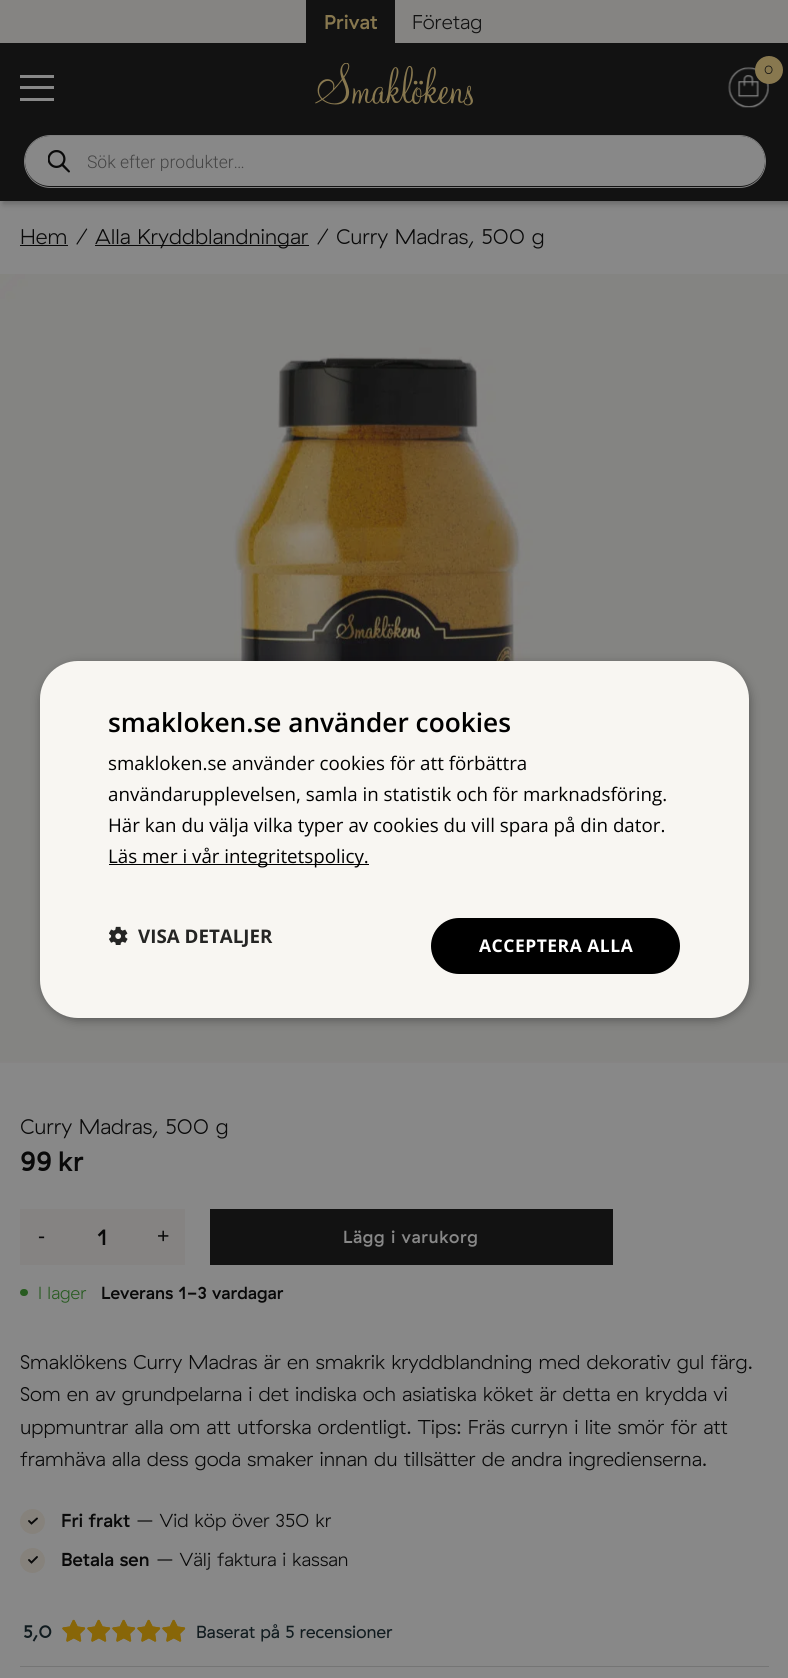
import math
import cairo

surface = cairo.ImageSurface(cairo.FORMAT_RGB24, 788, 1678)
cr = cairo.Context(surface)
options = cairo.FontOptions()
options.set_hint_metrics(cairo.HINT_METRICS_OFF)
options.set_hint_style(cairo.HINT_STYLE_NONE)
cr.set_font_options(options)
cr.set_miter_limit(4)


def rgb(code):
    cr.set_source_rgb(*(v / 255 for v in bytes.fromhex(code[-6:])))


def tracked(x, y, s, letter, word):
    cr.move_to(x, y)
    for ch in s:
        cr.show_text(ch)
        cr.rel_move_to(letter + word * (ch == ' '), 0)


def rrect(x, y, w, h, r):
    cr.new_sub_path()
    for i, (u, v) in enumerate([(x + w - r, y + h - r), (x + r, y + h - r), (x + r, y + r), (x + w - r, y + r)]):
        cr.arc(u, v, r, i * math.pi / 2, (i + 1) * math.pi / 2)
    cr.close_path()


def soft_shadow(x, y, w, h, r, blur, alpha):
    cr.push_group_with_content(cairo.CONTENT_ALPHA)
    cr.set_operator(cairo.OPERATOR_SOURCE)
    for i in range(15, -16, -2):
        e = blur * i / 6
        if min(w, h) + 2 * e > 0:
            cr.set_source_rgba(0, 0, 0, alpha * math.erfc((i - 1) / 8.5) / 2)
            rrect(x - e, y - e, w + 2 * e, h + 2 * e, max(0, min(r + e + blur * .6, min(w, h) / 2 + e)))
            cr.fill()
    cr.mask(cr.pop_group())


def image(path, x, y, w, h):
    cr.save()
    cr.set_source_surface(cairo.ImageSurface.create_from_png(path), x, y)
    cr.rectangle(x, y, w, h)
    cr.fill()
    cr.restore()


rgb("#888888")
cr.paint()
rgb("#090909")
soft_shadow(3, 3, 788, 201, 0, 3, 0.25)
for x, y, w, h, color in [
    (0, 43, 788, 158, "#121212"),
    (0, 0, 788, 43, "#858482"),
    (306, 0, 89, 43, "#121212"),
]:
    rgb(color)
    cr.rectangle(x, y, w, h)
    cr.fill()
image("img/1.png", 315, 63, 158, 43)
image("img/2.png", 728, 67, 41, 41)
rgb("#88784f")
cr.arc(769, 70, 14, 0, 2 * math.pi)
cr.fill()
for x, y, w, h, color in [
    (20, 75, 34, 3, "#888888"),
    (20, 86, 34, 3, "#888888"),
    (20, 98, 34, 3, "#888888"),
]:
    rgb(color)
    cr.rectangle(x, y, w, h)
    cr.fill()
rrect(24.5, 135.5, 741, 52, 26)
rgb("#808080")
cr.set_line_width(1)
cr.stroke()
rgb("#888888")
rrect(26.5, 137.5, 737, 47, 23.5)
cr.fill_preserve()
cr.set_line_width(3)
cr.stroke()
image("img/3.png", 48, 150, 22, 23)
rgb("#090909")
cr.rectangle(20, 245, 48, 1)
cr.fill()
cr.rectangle(95, 245, 214, 1)
cr.fill()
image("img/5.png", 0, 274, 788, 789)
rgb("#000000")
soft_shadow(41, 664, 709, 356, 38, 5, 0.35)
rgb("#f8f6f2")
rrect(40, 661, 709, 357, 38)
cr.fill()
rgb("#000000")
cr.rectangle(109, 864, 260, 1)
cr.fill()
image("img/4.png", 109, 926, 19, 19)
rrect(431, 918, 249, 56, 28)
cr.fill()
rgb("#858382")
cr.rectangle(20, 1209, 165, 56)
cr.fill()
rgb("#121212")
cr.rectangle(210, 1209, 403, 56)
cr.fill()
rgb("#285b20")
rrect(20, 1289, 8, 7, 3.5)
cr.fill()
rgb("#86827c")
cr.arc(32.5, 1521.5, 12.5, 0, 2 * math.pi)
cr.fill()
cr.arc(32.5, 1560.5, 12.5, 0, 2 * math.pi)
cr.fill()
cr.new_path()
cr.move_to(29, 1521)
cr.line_to(31.5, 1523.5)
cr.line_to(37, 1518.5)
cr.move_to(29, 1560)
cr.line_to(31.5, 1562.5)
cr.line_to(37, 1557)
rgb("#090909")
cr.set_line_width(1.9)
cr.set_line_cap(cairo.LINE_CAP_ROUND)
cr.stroke()
cr.new_path()
cr.move_to(74, 1637)
cr.line_to(67.5, 1640.5)
cr.line_to(68.5, 1633.5)
cr.line_to(63.5, 1628.5)
cr.line_to(70.5, 1627.5)
cr.line_to(73.5, 1621)
cr.line_to(77, 1627.5)
cr.line_to(84, 1628.5)
cr.line_to(79, 1633.5)
cr.line_to(80, 1640.5)
cr.close_path()
cr.move_to(99, 1637)
cr.line_to(92.5, 1640.5)
cr.line_to(93.5, 1633.5)
cr.line_to(88.5, 1628.5)
cr.line_to(95.5, 1627.5)
cr.line_to(98.5, 1621)
cr.line_to(102, 1627.5)
cr.line_to(109, 1628.5)
cr.line_to(104, 1633.5)
cr.line_to(105, 1640.5)
cr.close_path()
rgb("#886709")
cr.set_line_width(2.1)
cr.set_line_join(cairo.LINE_JOIN_ROUND)
cr.stroke()
cr.new_path()
cr.move_to(124, 1637)
cr.line_to(117.5, 1640.5)
cr.line_to(118.5, 1633.5)
cr.line_to(113.5, 1628.5)
cr.line_to(120.5, 1627.5)
cr.line_to(123.5, 1621)
cr.line_to(127, 1627.5)
cr.line_to(134, 1628.5)
cr.line_to(129, 1633.5)
cr.line_to(130, 1640.5)
cr.close_path()
cr.move_to(149, 1637)
cr.line_to(142.5, 1640.5)
cr.line_to(143.5, 1633.5)
cr.line_to(138.5, 1628.5)
cr.line_to(145.5, 1627.5)
cr.line_to(148.5, 1621)
cr.line_to(152, 1627.5)
cr.line_to(159, 1628.5)
cr.line_to(154, 1633.5)
cr.line_to(155, 1640.5)
cr.close_path()
cr.stroke()
cr.new_path()
cr.move_to(174, 1637)
cr.line_to(167.5, 1640.5)
cr.line_to(168.5, 1633.5)
cr.line_to(163.5, 1628.5)
cr.line_to(170.5, 1627.5)
cr.line_to(173.5, 1621)
cr.line_to(177, 1627.5)
cr.line_to(184, 1628.5)
cr.line_to(179, 1633.5)
cr.line_to(180, 1640.5)
cr.close_path()
cr.stroke()
image("img/6.png", 62, 1619, 24, 23)
image("img/6.png", 87, 1619, 24, 23)
image("img/6.png", 112, 1619, 24, 23)
image("img/6.png", 137, 1619, 24, 23)
image("img/6.png", 162, 1619, 24, 23)
rgb("#757575")
cr.rectangle(20, 1666, 749, 1)
cr.fill()
cr.select_font_face("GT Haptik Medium")
cr.set_font_size(20)
rgb("#88784f")
cr.move_to(324, 29)
cr.show_text("Privat")
cr.select_font_face("GT Haptik Light")
rgb("#121212")
cr.move_to(412, 29)
cr.show_text("Företag")
cr.set_font_size(12)
cr.move_to(764, 74)
cr.show_text("0")
cr.save()
cr.rectangle(88, 151, 645, 20)
cr.clip()
cr.select_font_face("Roboto Light")
cr.set_font_size(17.5)
rgb("#444444")
cr.move_to(87, 168)
cr.show_text("Sök efter produkter…")
cr.restore()
cr.set_font_size(21.25)
rgb("#090909")
for x, y, s in [
    (20, 244, "Hem"),
    (76, 244, "/"),
    (95, 244, "Alla Kryddblandningar"),
    (317, 244, "/"),
    (336, 244, "Curry Madras, 500 g"),
]:
    cr.move_to(x, y)
    cr.show_text(s)
cr.select_font_face("Open Sans SemiBold")
cr.set_font_size(26.25)
rgb("#000000")
cr.move_to(108, 732)
cr.show_text("smakloken.se använder cookies")
cr.select_font_face("Open Sans")
cr.set_font_size(18.75)
for x, y, s in [
    (108, 770, "smakloken.se använder cookies för att förbättra"),
    (108, 801, "användarupplevelsen, samla in statistik och för marknadsföring."),
    (108, 832, "Här kan du välja vilka typer av cookies du vill spara på din dator."),
    (108, 863, "Läs mer i vår integritetspolicy."),
]:
    cr.move_to(x, y)
    cr.show_text(s)
cr.select_font_face("Open Sans", cairo.FONT_SLANT_NORMAL, cairo.FONT_WEIGHT_BOLD)
rgb("#252524")
cr.move_to(138, 943)
cr.show_text("VISA DETALJER")
cr.set_font_size(17.5)
rgb("#ffffff")
tracked(479, 952, "ACCEPTERA ALLA", 0.5, 0)
cr.select_font_face("GT Haptik Light")
cr.set_font_size(21.25)
rgb("#090909")
cr.move_to(20, 1134)
cr.show_text("Curry Madras, 500 g")
cr.select_font_face("GT Haptik Medium")
cr.set_font_size(28)
cr.move_to(20, 1171)
cr.show_text("99")
cr.move_to(58, 1171)
cr.show_text("kr")
cr.select_font_face("Liberation Sans")
cr.set_font_size(21.25)
cr.move_to(38, 1243)
cr.show_text("-")
cr.select_font_face("GT Haptik", cairo.FONT_SLANT_NORMAL, cairo.FONT_WEIGHT_BOLD)
cr.move_to(97, 1245)
cr.show_text("1")
cr.select_font_face("Liberation Sans")
cr.move_to(157, 1243)
cr.show_text("+")
cr.select_font_face("GT Haptik Medium")
cr.set_font_size(17.5)
rgb("#888888")
tracked(343, 1243, "Lägg i varukorg", 0.6, 0)
cr.select_font_face("GT Haptik Light")
rgb("#285b20")
cr.move_to(38, 1299)
cr.show_text("I lager")
cr.select_font_face("GT Haptik Medium")
rgb("#090909")
cr.move_to(101, 1299)
cr.show_text("Leverans 1-3 vardagar")
cr.select_font_face("GT Haptik Light")
cr.set_font_size(20)
for x, y, s in [
    (20, 1369, "Smaklökens Curry Madras är en smakrik kryddblandning med dekorativ gul färg."),
    (20, 1401, "Som en av grundpelarna i det indiska och asiatiska köket är detta en krydda vi"),
    (20, 1434, "uppmuntrar alla om att utforska ordentligt. Tips: Fräs curryn i lite smör för att"),
    (20, 1466, "framhäva alla dess goda smaker innan du tillsätter de andra ingredienserna."),
]:
    cr.move_to(x, y)
    cr.show_text(s)
cr.select_font_face("GT Haptik Medium")
cr.set_font_size(18.75)
cr.move_to(61, 1527)
cr.show_text("Fri frakt")
cr.select_font_face("GT Haptik Light")
cr.move_to(136, 1527)
cr.show_text("– Vid köp över 350 kr")
cr.select_font_face("GT Haptik Medium")
cr.move_to(61, 1566)
cr.show_text("Betala sen")
cr.select_font_face("GT Haptik Light")
cr.move_to(156, 1566)
cr.show_text("– Välj faktura i kassan")
cr.select_font_face("GT Haptik", cairo.FONT_SLANT_NORMAL, cairo.FONT_WEIGHT_BOLD)
cr.set_font_size(17.5)
rgb("#101b1f")
cr.move_to(23, 1638)
cr.show_text("5,0")
cr.select_font_face("GT Haptik")
cr.move_to(196, 1638)
cr.show_text("Baserat på 5 recensioner")
surface.write_to_png("page.png")
